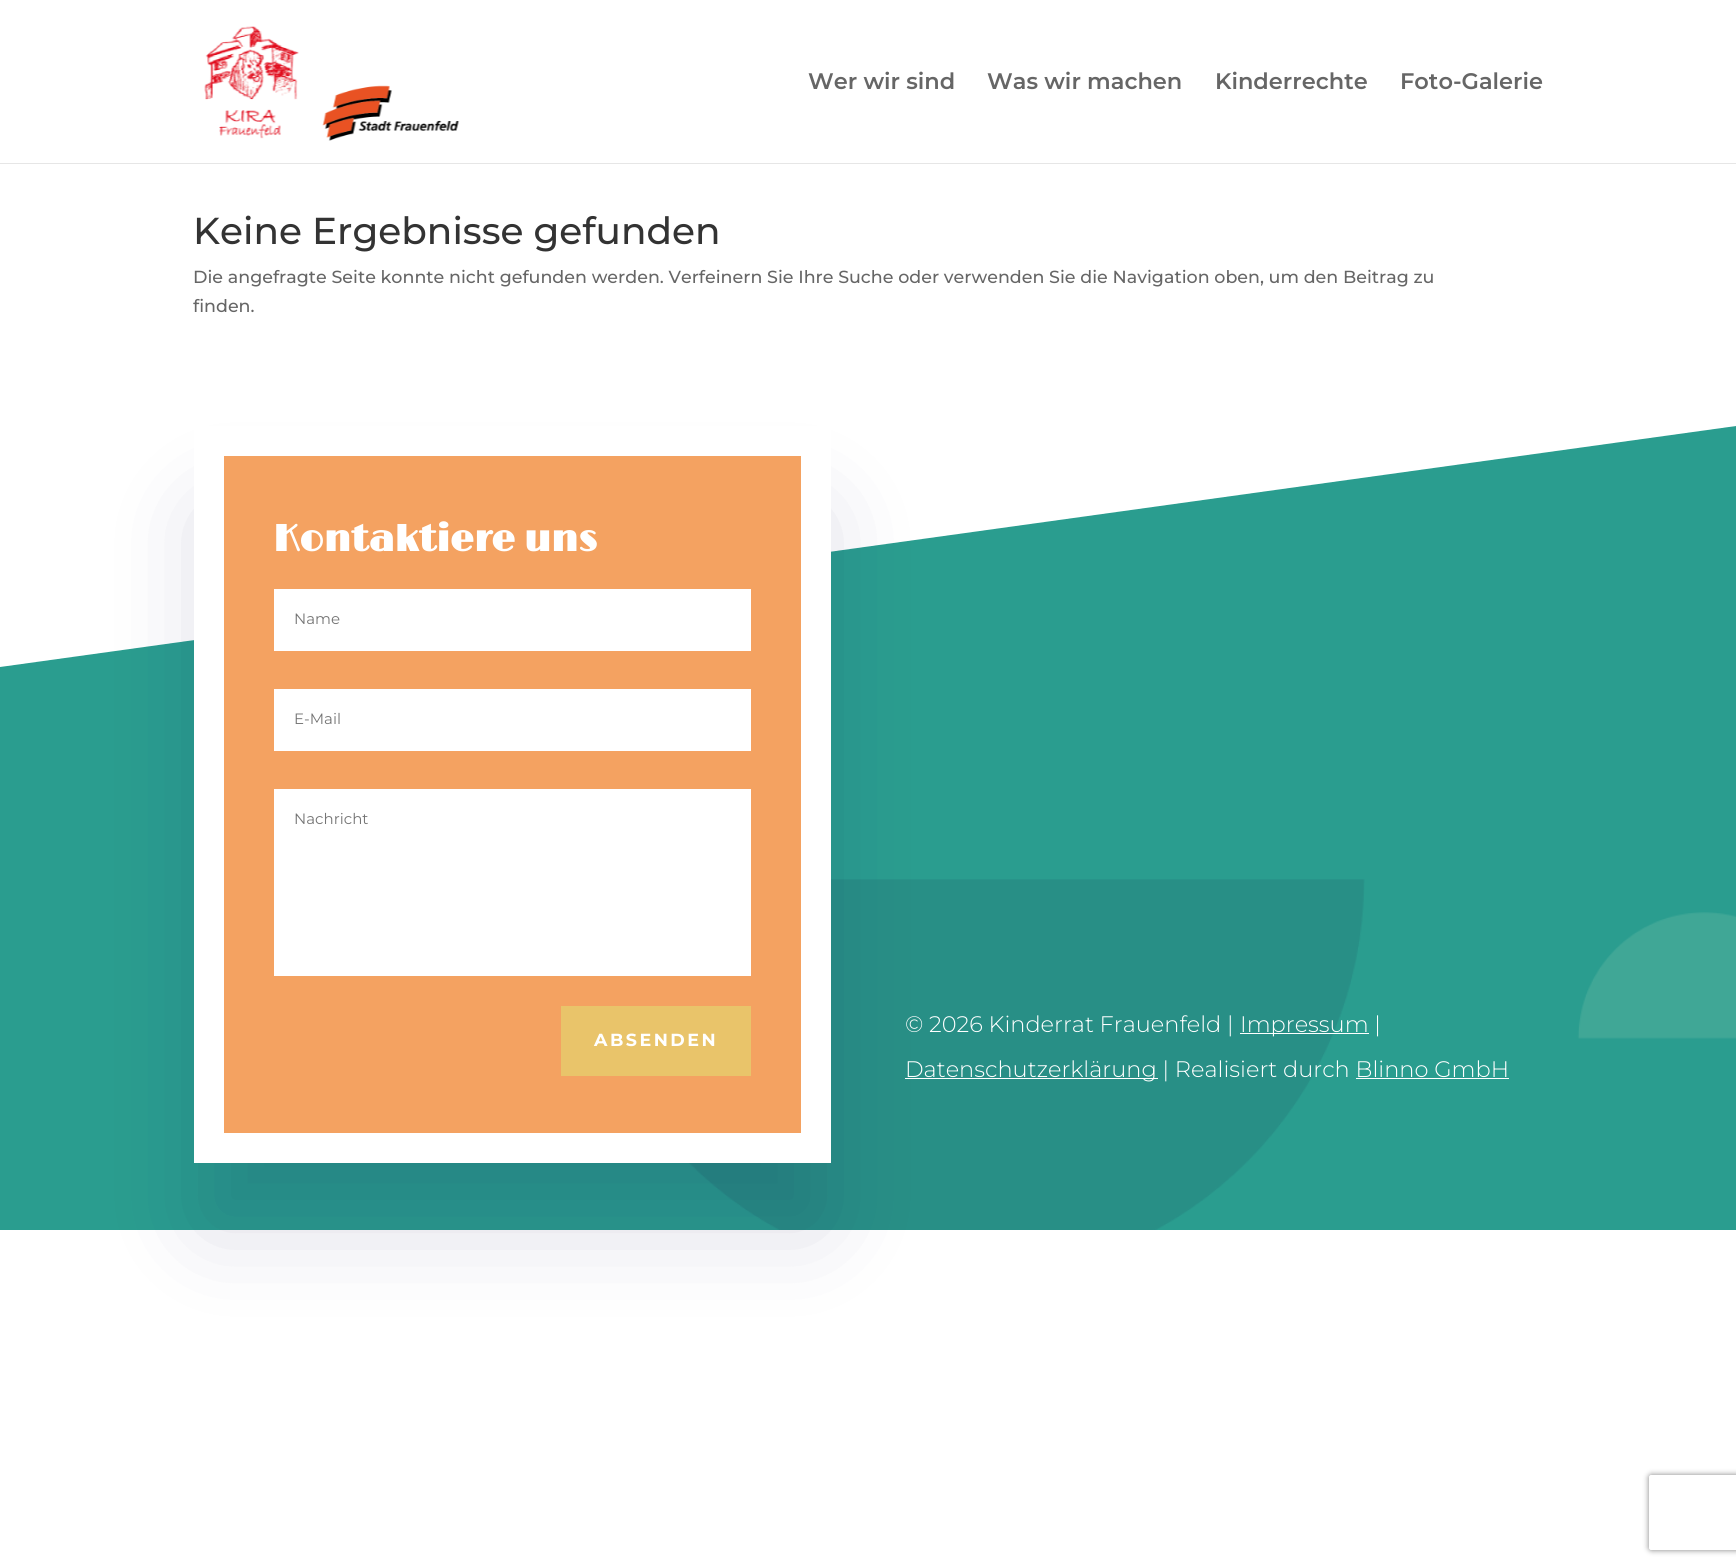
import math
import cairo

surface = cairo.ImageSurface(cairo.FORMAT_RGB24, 1736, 1567)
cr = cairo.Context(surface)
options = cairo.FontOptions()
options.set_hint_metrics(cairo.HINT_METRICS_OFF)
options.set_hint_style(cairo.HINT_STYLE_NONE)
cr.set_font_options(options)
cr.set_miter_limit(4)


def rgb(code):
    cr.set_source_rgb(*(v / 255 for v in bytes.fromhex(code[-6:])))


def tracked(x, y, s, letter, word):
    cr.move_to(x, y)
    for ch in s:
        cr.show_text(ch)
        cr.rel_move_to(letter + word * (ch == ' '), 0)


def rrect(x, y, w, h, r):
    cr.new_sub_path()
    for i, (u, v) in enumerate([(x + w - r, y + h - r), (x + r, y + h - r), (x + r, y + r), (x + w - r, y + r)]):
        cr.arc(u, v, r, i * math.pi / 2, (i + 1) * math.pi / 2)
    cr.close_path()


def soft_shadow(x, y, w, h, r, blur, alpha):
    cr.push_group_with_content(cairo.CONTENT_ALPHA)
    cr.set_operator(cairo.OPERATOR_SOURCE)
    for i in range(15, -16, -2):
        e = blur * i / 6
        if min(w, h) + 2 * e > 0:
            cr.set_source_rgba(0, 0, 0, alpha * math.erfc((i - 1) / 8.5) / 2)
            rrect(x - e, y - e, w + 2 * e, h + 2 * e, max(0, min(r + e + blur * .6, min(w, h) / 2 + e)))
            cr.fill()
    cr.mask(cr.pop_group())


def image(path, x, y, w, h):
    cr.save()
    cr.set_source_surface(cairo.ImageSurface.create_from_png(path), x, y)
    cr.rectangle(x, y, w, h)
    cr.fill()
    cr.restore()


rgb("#ffffff")
cr.paint()
rgb("#e6e6e6")
cr.rectangle(0, 163, 1736, 1)
cr.fill()
image("img/1.png", 204, 26, 256, 115)
rgb("#2a9d8f")
cr.rectangle(0, 426, 1736, 804)
cr.fill()
rgb("#ffffff")
cr.new_path()
cr.move_to(0, 667)
cr.line_to(0, 426)
cr.line_to(1736, 426)
cr.close_path()
cr.fill()
image("img/2.png", 689, 879, 1047, 351)
rgb("#090047")
soft_shadow(206, 514, 613, 711, 0, 50, 0.15)
rgb("#f4a261")
cr.rectangle(209, 441, 607, 707)
cr.fill_preserve()
rgb("#ffffff")
cr.set_line_width(30)
cr.stroke()
for x, y, w, h, color in [
    (274, 589, 477, 62, "#ffffff"),
    (274, 689, 477, 62, "#ffffff"),
    (274, 789, 477, 187, "#ffffff"),
    (561, 1006, 190, 70, "#e9c46a"),
    (1240, 1033, 129, 1, "#ffffff"),
    (905, 1078, 253, 1, "#ffffff"),
    (1356, 1078, 153, 1, "#ffffff"),
]:
    rgb(color)
    cr.rectangle(x, y, w, h)
    cr.fill()
cr.save()
cr.set_fill_rule(cairo.FILL_RULE_EVEN_ODD)
cr.new_path()
cr.move_to(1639, 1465)
cr.line_to(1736, 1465)
cr.line_to(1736, 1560)
cr.line_to(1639, 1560)
cr.close_path()
cr.move_to(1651.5, 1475)
cr.line_to(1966.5, 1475)
cr.curve_to(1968, 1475, 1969, 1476, 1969, 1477.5)
cr.line_to(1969, 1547.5)
cr.curve_to(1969, 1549, 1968, 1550, 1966.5, 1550)
cr.line_to(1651.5, 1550)
cr.curve_to(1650, 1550, 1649, 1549, 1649, 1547.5)
cr.line_to(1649, 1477.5)
cr.curve_to(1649, 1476, 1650, 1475, 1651.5, 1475)
cr.close_path()
cr.clip()
rgb("#808080")
soft_shadow(1649, 1475, 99, 75, 2.5, 3, 1)
cr.restore()
cr.select_font_face("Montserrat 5 Thin")
cr.set_font_size(22.5)
rgb("#666666")
for x, y, s in [
    (808, 89, "Wer wir sind"),
    (987, 89, "Was wir machen"),
    (1215, 89, "Kinderrechte"),
    (1400, 89, "Foto-Galerie"),
]:
    cr.move_to(x, y)
    cr.show_text(s)
cr.select_font_face("Montserrat Thin")
cr.set_font_size(37.5)
rgb("#333333")
cr.move_to(193, 244)
cr.show_text("Keine Ergebnisse gefunden")
cr.set_font_size(17.5)
rgb("#666666")
cr.move_to(193, 283)
cr.show_text("Die angefragte Seite konnte nicht gefunden werden. Verfeinern Sie Ihre Suche oder verwenden Sie die Navigation oben, um den Beitrag zu")
cr.move_to(193, 312)
cr.show_text("finden.")
cr.select_font_face("Limelight", cairo.FONT_SLANT_NORMAL, cairo.FONT_WEIGHT_BOLD)
cr.set_font_size(37.5)
rgb("#ffffff")
cr.move_to(273, 551)
cr.show_text("Kontaktiere uns")
cr.select_font_face("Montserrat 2 Thin")
cr.set_font_size(15)
rgb("#757575")
for x, y, s in [
    (294, 624, "Name"),
    (294, 724, "E-Mail"),
    (294, 824, "Nachricht"),
]:
    cr.move_to(x, y)
    cr.show_text(s)
cr.select_font_face("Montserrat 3 Thin")
cr.set_font_size(17.5)
rgb("#ffffff")
tracked(594, 1046, "ABSENDEN", 2.5, 0)
cr.select_font_face("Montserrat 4 Thin")
cr.set_font_size(22.5)
for x, y, s in [
    (905, 1032, "© 2026 Kinderrat Frauenfeld |"),
    (1240, 1032, "Impressum |"),
    (905, 1077, "Datenschutzerklärung | Realisiert durch Blinno GmbH"),
]:
    cr.move_to(x, y)
    cr.show_text(s)
surface.write_to_png("page.png")
